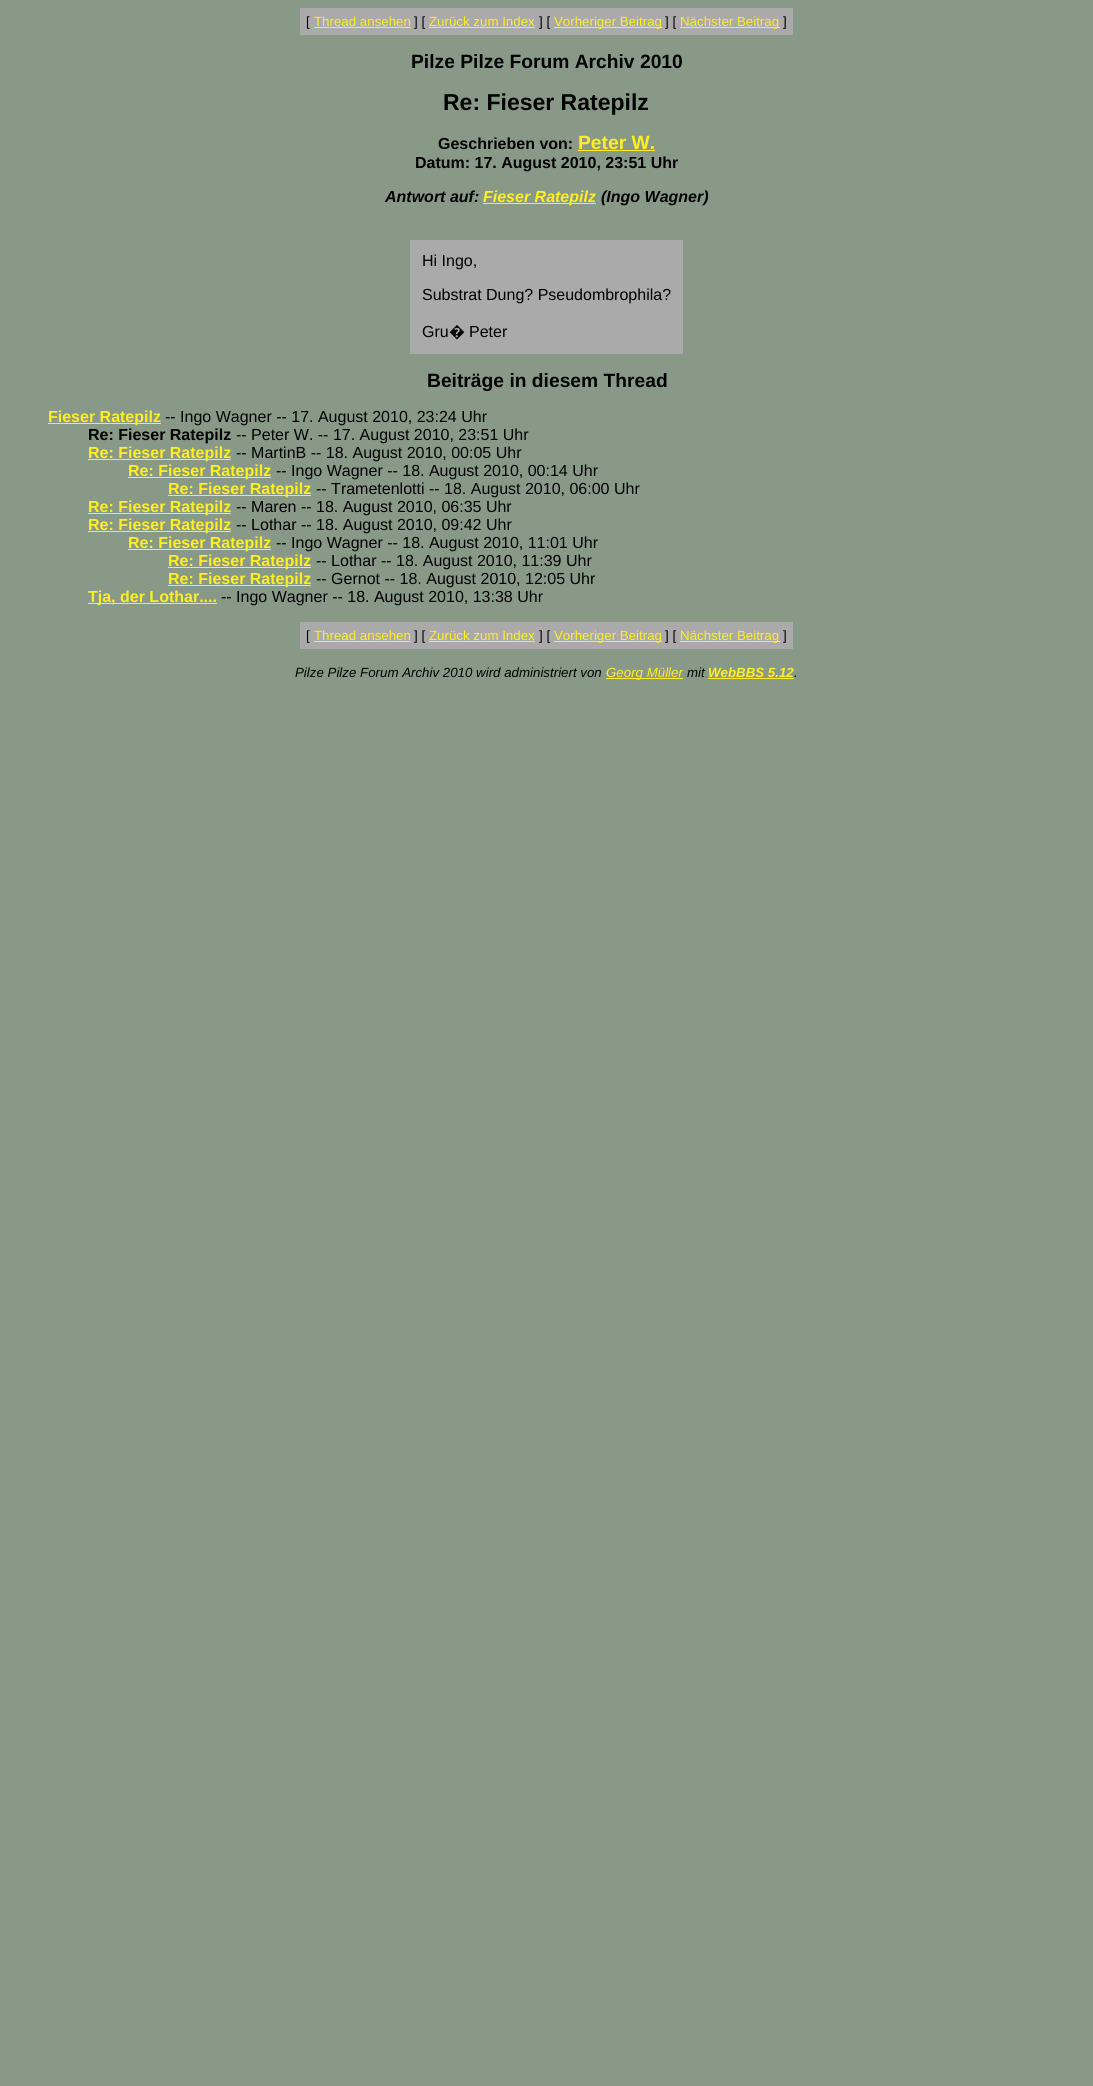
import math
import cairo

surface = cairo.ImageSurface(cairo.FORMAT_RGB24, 1093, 2086)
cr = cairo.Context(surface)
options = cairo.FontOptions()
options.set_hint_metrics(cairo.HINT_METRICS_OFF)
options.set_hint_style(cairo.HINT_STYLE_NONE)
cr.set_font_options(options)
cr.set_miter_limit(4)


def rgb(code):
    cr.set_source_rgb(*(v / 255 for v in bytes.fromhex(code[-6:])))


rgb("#889988")
cr.paint()
for x, y, w, h, color in [
    (300, 8, 493, 27, "#aaaaaa"),
    (314, 27, 97, 1, "#ffee22"),
    (429, 27, 106, 1, "#ffee22"),
    (554, 27, 108, 1, "#ffee22"),
    (680, 27, 100, 1, "#ffee22"),
    (578, 150, 77, 1, "#ffee22"),
    (483, 203, 113, 1, "#ffee22"),
    (410, 240, 273, 114, "#aaaaaa"),
    (48, 423, 113, 1, "#ffee22"),
    (88, 459, 143, 1, "#ffee22"),
    (128, 477, 143, 1, "#ffee22"),
    (168, 495, 143, 1, "#ffee22"),
    (88, 513, 143, 1, "#ffee22"),
    (88, 531, 143, 1, "#ffee22"),
    (128, 549, 143, 1, "#ffee22"),
    (168, 567, 143, 1, "#ffee22"),
    (168, 585, 143, 1, "#ffee22"),
    (88, 603, 129, 1, "#ffee22"),
    (300, 622, 493, 27, "#aaaaaa"),
    (314, 641, 97, 1, "#ffee22"),
    (429, 641, 106, 1, "#ffee22"),
    (554, 641, 108, 1, "#ffee22"),
    (680, 641, 100, 1, "#ffee22"),
    (606, 678, 77, 1, "#ffee22"),
    (708, 678, 86, 1, "#ffee22"),
]:
    rgb(color)
    cr.rectangle(x, y, w, h)
    cr.fill()
cr.select_font_face("Liberation Sans")
cr.set_font_size(13.3)
rgb("#000000")
cr.move_to(306, 26)
cr.show_text("[")
rgb("#ffee22")
cr.move_to(314, 26)
cr.show_text("Thread ansehen")
rgb("#000000")
cr.move_to(414, 26)
cr.show_text("] [")
rgb("#ffee22")
cr.move_to(429, 26)
cr.show_text("Zurück zum Index")
rgb("#000000")
cr.move_to(539, 26)
cr.show_text("] [")
rgb("#ffee22")
cr.move_to(554, 26)
cr.show_text("Vorheriger Beitrag")
rgb("#000000")
cr.move_to(665, 26)
cr.show_text("] [")
rgb("#ffee22")
cr.move_to(680, 26)
cr.show_text("Nächster Beitrag")
rgb("#000000")
cr.move_to(783, 26)
cr.show_text("]")
cr.select_font_face("Liberation Sans", cairo.FONT_SLANT_NORMAL, cairo.FONT_WEIGHT_BOLD)
cr.set_font_size(19.25)
cr.move_to(411, 68)
cr.show_text("Pilze Pilze Forum Archiv 2010")
cr.set_font_size(23)
cr.move_to(443, 110)
cr.show_text("Re: Fieser Ratepilz")
cr.set_font_size(16)
cr.move_to(438, 149)
cr.show_text("Geschrieben von:")
cr.set_font_size(19.25)
rgb("#ffee22")
cr.move_to(578, 149)
cr.show_text("Peter W.")
cr.set_font_size(16)
rgb("#000000")
cr.move_to(415, 168)
cr.show_text("Datum: 17. August 2010, 23:51 Uhr")
cr.select_font_face("Liberation Sans", cairo.FONT_SLANT_ITALIC, cairo.FONT_WEIGHT_BOLD)
cr.move_to(385, 202)
cr.show_text("Antwort auf:")
rgb("#ffee22")
cr.move_to(483, 202)
cr.show_text("Fieser Ratepilz")
rgb("#000000")
cr.move_to(601, 202)
cr.show_text("(Ingo Wagner)")
cr.select_font_face("Liberation Sans")
for x, y, s in [
    (422, 266, "Hi Ingo,"),
    (422, 300, "Substrat Dung? Pseudombrophila?"),
    (422, 337, "Gru"),
]:
    cr.move_to(x, y)
    cr.show_text(s)
cr.select_font_face("Noto Sans")
cr.move_to(449, 337)
cr.show_text("�")
cr.select_font_face("Liberation Sans")
cr.move_to(469, 337)
cr.show_text("Peter")
cr.select_font_face("Liberation Sans", cairo.FONT_SLANT_NORMAL, cairo.FONT_WEIGHT_BOLD)
cr.set_font_size(19.25)
cr.move_to(427, 387)
cr.show_text("Beiträge in diesem Thread")
cr.set_font_size(16)
rgb("#ffee22")
cr.move_to(48, 422)
cr.show_text("Fieser Ratepilz")
cr.select_font_face("Liberation Sans")
rgb("#000000")
cr.move_to(165, 422)
cr.show_text("-- Ingo Wagner -- 17. August 2010, 23:24 Uhr")
cr.select_font_face("Liberation Sans", cairo.FONT_SLANT_NORMAL, cairo.FONT_WEIGHT_BOLD)
cr.move_to(88, 440)
cr.show_text("Re: Fieser Ratepilz")
cr.select_font_face("Liberation Sans")
cr.move_to(236, 440)
cr.show_text("-- Peter W. -- 17. August 2010, 23:51 Uhr")
cr.select_font_face("Liberation Sans", cairo.FONT_SLANT_NORMAL, cairo.FONT_WEIGHT_BOLD)
rgb("#ffee22")
cr.move_to(88, 458)
cr.show_text("Re: Fieser Ratepilz")
cr.select_font_face("Liberation Sans")
rgb("#000000")
cr.move_to(236, 458)
cr.show_text("-- MartinB -- 18. August 2010, 00:05 Uhr")
cr.select_font_face("Liberation Sans", cairo.FONT_SLANT_NORMAL, cairo.FONT_WEIGHT_BOLD)
rgb("#ffee22")
cr.move_to(128, 476)
cr.show_text("Re: Fieser Ratepilz")
cr.select_font_face("Liberation Sans")
rgb("#000000")
cr.move_to(276, 476)
cr.show_text("-- Ingo Wagner -- 18. August 2010, 00:14 Uhr")
cr.select_font_face("Liberation Sans", cairo.FONT_SLANT_NORMAL, cairo.FONT_WEIGHT_BOLD)
rgb("#ffee22")
cr.move_to(168, 494)
cr.show_text("Re: Fieser Ratepilz")
cr.select_font_face("Liberation Sans")
rgb("#000000")
cr.move_to(316, 494)
cr.show_text("-- Trametenlotti -- 18. August 2010, 06:00 Uhr")
cr.select_font_face("Liberation Sans", cairo.FONT_SLANT_NORMAL, cairo.FONT_WEIGHT_BOLD)
rgb("#ffee22")
cr.move_to(88, 512)
cr.show_text("Re: Fieser Ratepilz")
cr.select_font_face("Liberation Sans")
rgb("#000000")
cr.move_to(236, 512)
cr.show_text("-- Maren -- 18. August 2010, 06:35 Uhr")
cr.select_font_face("Liberation Sans", cairo.FONT_SLANT_NORMAL, cairo.FONT_WEIGHT_BOLD)
rgb("#ffee22")
cr.move_to(88, 530)
cr.show_text("Re: Fieser Ratepilz")
cr.select_font_face("Liberation Sans")
rgb("#000000")
cr.move_to(236, 530)
cr.show_text("-- Lothar -- 18. August 2010, 09:42 Uhr")
cr.select_font_face("Liberation Sans", cairo.FONT_SLANT_NORMAL, cairo.FONT_WEIGHT_BOLD)
rgb("#ffee22")
cr.move_to(128, 548)
cr.show_text("Re: Fieser Ratepilz")
cr.select_font_face("Liberation Sans")
rgb("#000000")
cr.move_to(276, 548)
cr.show_text("-- Ingo Wagner -- 18. August 2010, 11:01 Uhr")
cr.select_font_face("Liberation Sans", cairo.FONT_SLANT_NORMAL, cairo.FONT_WEIGHT_BOLD)
rgb("#ffee22")
cr.move_to(168, 566)
cr.show_text("Re: Fieser Ratepilz")
cr.select_font_face("Liberation Sans")
rgb("#000000")
cr.move_to(316, 566)
cr.show_text("-- Lothar -- 18. August 2010, 11:39 Uhr")
cr.select_font_face("Liberation Sans", cairo.FONT_SLANT_NORMAL, cairo.FONT_WEIGHT_BOLD)
rgb("#ffee22")
cr.move_to(168, 584)
cr.show_text("Re: Fieser Ratepilz")
cr.select_font_face("Liberation Sans")
rgb("#000000")
cr.move_to(316, 584)
cr.show_text("-- Gernot -- 18. August 2010, 12:05 Uhr")
cr.select_font_face("Liberation Sans", cairo.FONT_SLANT_NORMAL, cairo.FONT_WEIGHT_BOLD)
rgb("#ffee22")
cr.move_to(88, 602)
cr.show_text("Tja, der Lothar....")
cr.select_font_face("Liberation Sans")
rgb("#000000")
cr.move_to(221, 602)
cr.show_text("-- Ingo Wagner -- 18. August 2010, 13:38 Uhr")
cr.set_font_size(13.3)
cr.move_to(306, 640)
cr.show_text("[")
rgb("#ffee22")
cr.move_to(314, 640)
cr.show_text("Thread ansehen")
rgb("#000000")
cr.move_to(414, 640)
cr.show_text("] [")
rgb("#ffee22")
cr.move_to(429, 640)
cr.show_text("Zurück zum Index")
rgb("#000000")
cr.move_to(539, 640)
cr.show_text("] [")
rgb("#ffee22")
cr.move_to(554, 640)
cr.show_text("Vorheriger Beitrag")
rgb("#000000")
cr.move_to(665, 640)
cr.show_text("] [")
rgb("#ffee22")
cr.move_to(680, 640)
cr.show_text("Nächster Beitrag")
rgb("#000000")
cr.move_to(783, 640)
cr.show_text("]")
cr.select_font_face("Liberation Sans", cairo.FONT_SLANT_ITALIC)
cr.move_to(295, 677)
cr.show_text("Pilze Pilze Forum Archiv 2010 wird administriert von")
rgb("#ffee22")
cr.move_to(606, 677)
cr.show_text("Georg Müller")
rgb("#000000")
cr.move_to(687, 677)
cr.show_text("mit")
cr.select_font_face("Liberation Sans", cairo.FONT_SLANT_ITALIC, cairo.FONT_WEIGHT_BOLD)
rgb("#ffee22")
cr.move_to(708, 677)
cr.show_text("WebBBS 5.12")
cr.select_font_face("Liberation Sans", cairo.FONT_SLANT_ITALIC)
rgb("#000000")
cr.move_to(794, 677)
cr.show_text(".")
surface.write_to_png("page.png")
